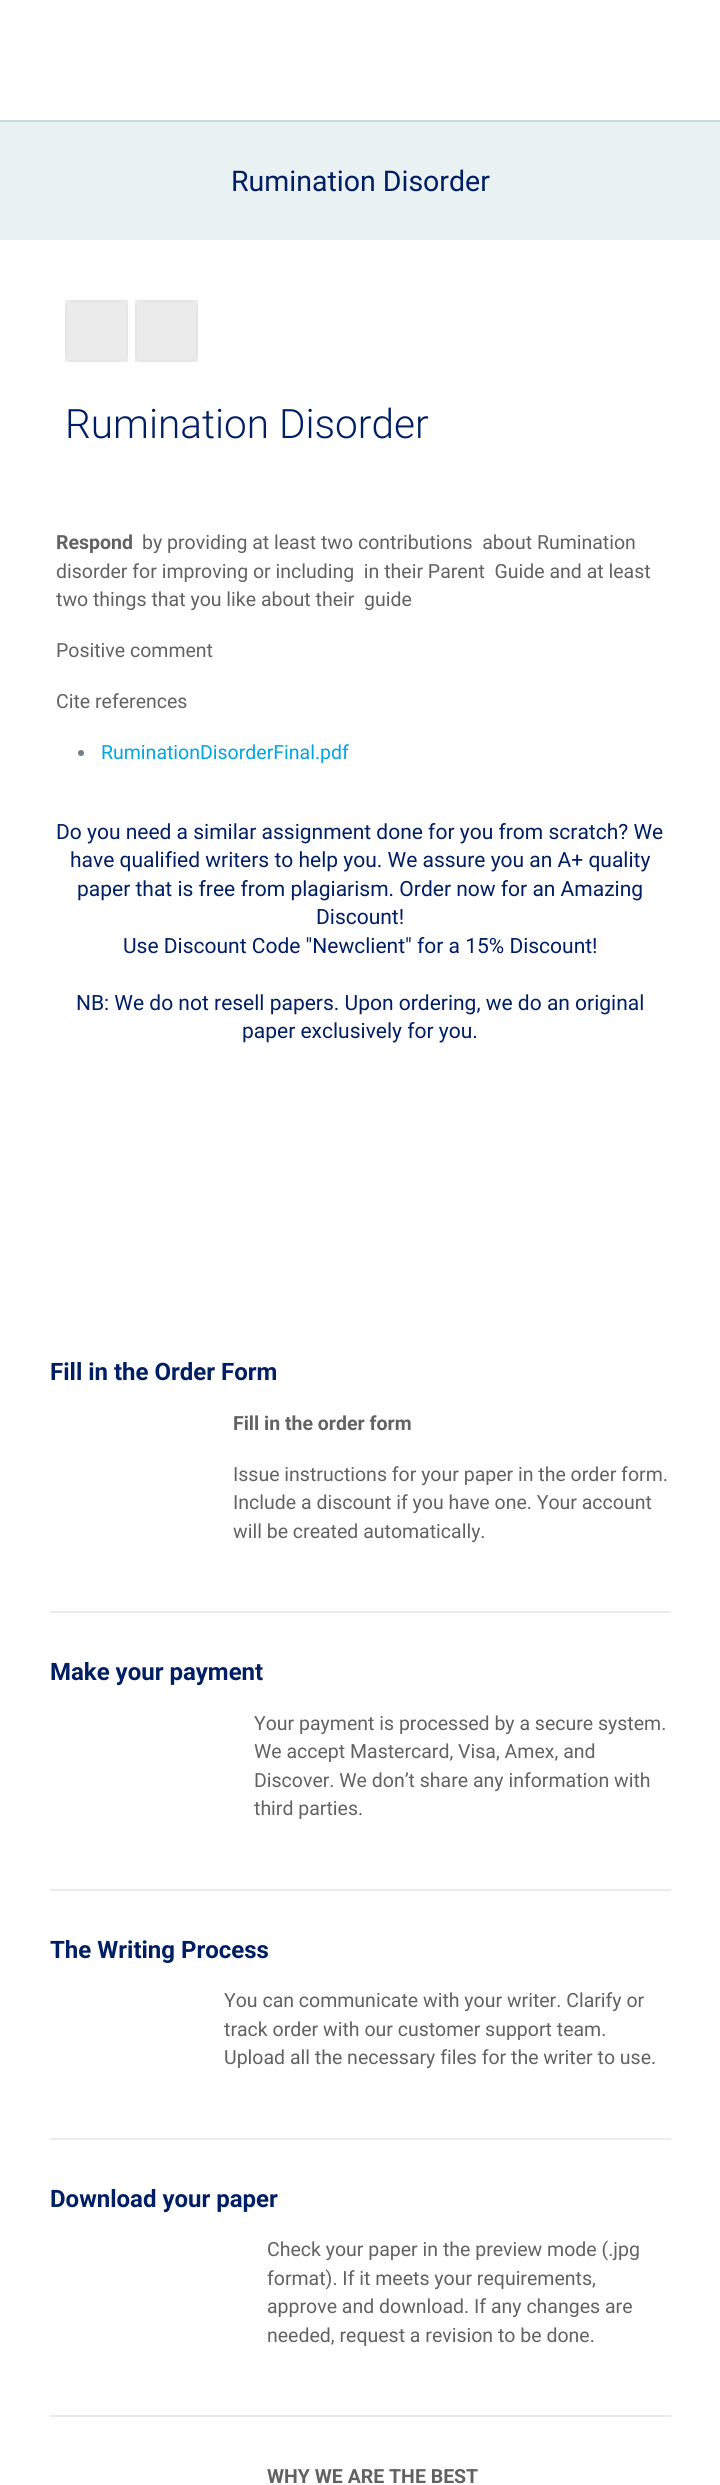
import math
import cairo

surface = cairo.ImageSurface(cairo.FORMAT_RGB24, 720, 2485)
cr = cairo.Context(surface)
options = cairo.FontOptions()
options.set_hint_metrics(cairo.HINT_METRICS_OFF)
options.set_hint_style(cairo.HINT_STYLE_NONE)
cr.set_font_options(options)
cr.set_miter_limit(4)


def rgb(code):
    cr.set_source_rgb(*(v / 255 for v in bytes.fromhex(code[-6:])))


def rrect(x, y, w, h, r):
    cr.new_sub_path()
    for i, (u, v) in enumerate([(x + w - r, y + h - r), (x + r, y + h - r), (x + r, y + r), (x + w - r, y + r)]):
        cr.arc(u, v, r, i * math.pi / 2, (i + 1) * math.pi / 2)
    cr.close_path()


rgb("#ffffff")
cr.paint()
rgb("#c3d8e0")
cr.rectangle(0, 120, 720, 2)
cr.fill()
rgb("#eaf1f2")
cr.rectangle(0, 122, 720, 118)
cr.fill()
rgb("#f7f7f7")
rrect(65, 300, 63, 62, 8)
cr.fill()
cr.rectangle(66, 301, 61, 60)
cr.set_source_rgba(0, 0, 0, 0.03)
cr.stroke()
cr.set_source_rgba(0, 0, 0, 0.05)
cr.rectangle(65, 300, 63, 62)
cr.fill()
rgb("#f7f7f7")
rrect(135, 300, 63, 62, 8)
cr.fill()
cr.rectangle(136, 301, 61, 60)
cr.set_source_rgba(0, 0, 0, 0.03)
cr.stroke()
cr.set_source_rgba(0, 0, 0, 0.05)
cr.rectangle(135, 300, 63, 62)
cr.fill()
rgb("#737e86")
cr.arc(81, 753, 3, 0, 2 * math.pi)
cr.fill()
for x, y, w, h, color in [
    (50, 1611, 621, 2, "#ebebeb"),
    (50, 1889, 621, 2, "#ebebeb"),
    (50, 2138, 621, 2, "#ebebeb"),
    (50, 2415, 621, 2, "#ebebeb"),
]:
    rgb(color)
    cr.rectangle(x, y, w, h)
    cr.fill()
cr.select_font_face("Roboto")
cr.set_font_size(28.5)
rgb("#001e63")
cr.move_to(231, 191)
cr.show_text("Rumination Disorder")
cr.select_font_face("Roboto Light")
cr.set_font_size(40.5)
cr.move_to(65, 438)
cr.show_text("Rumination Disorder")
cr.select_font_face("Roboto", cairo.FONT_SLANT_NORMAL, cairo.FONT_WEIGHT_BOLD)
cr.set_font_size(19.5)
rgb("#626262")
cr.move_to(56, 549)
cr.show_text("Respond")
cr.select_font_face("Roboto")
for x, y, s in [
    (142, 549, "by providing at least two contributions  about Rumination"),
    (56, 578, "disorder for improving or including  in their Parent  Guide and at least"),
    (56, 606, "two things that you like about their  guide"),
    (56, 657, "Positive comment"),
    (56, 708, "Cite references"),
]:
    cr.move_to(x, y)
    cr.show_text(s)
rgb("#00a4e3")
cr.move_to(101, 759)
cr.show_text("RuminationDisorderFinal.pdf")
cr.set_font_size(21)
rgb("#001e63")
for x, y, s in [
    (56, 839, "Do you need a similar assignment done for you from scratch? We"),
    (70, 867, "have qualified writers to help you. We assure you an A+ quality"),
    (77, 896, "paper that is free from plagiarism. Order now for an Amazing"),
    (316, 924, "Discount!"),
    (123, 953, "Use Discount Code \"Newclient\" for a 15% Discount!"),
    (76, 1010, "NB: We do not resell papers. Upon ordering, we do an original"),
    (242, 1038, "paper exclusively for you."),
]:
    cr.move_to(x, y)
    cr.show_text(s)
cr.select_font_face("Roboto", cairo.FONT_SLANT_NORMAL, cairo.FONT_WEIGHT_BOLD)
cr.set_font_size(24)
cr.move_to(50, 1380)
cr.show_text("Fill in the Order Form")
cr.set_font_size(19.5)
rgb("#626262")
cr.move_to(233, 1430)
cr.show_text("Fill in the order form")
cr.select_font_face("Roboto")
for x, y, s in [
    (233, 1481, "Issue instructions for your paper in the order form."),
    (233, 1509, "Include a discount if you have one. Your account"),
    (233, 1538, "will be created automatically."),
]:
    cr.move_to(x, y)
    cr.show_text(s)
cr.select_font_face("Roboto", cairo.FONT_SLANT_NORMAL, cairo.FONT_WEIGHT_BOLD)
cr.set_font_size(24)
rgb("#001e63")
cr.move_to(50, 1680)
cr.show_text("Make your payment")
cr.select_font_face("Roboto")
cr.set_font_size(19.5)
rgb("#626262")
for x, y, s in [
    (254, 1730, "Your payment is processed by a secure system."),
    (254, 1758, "We accept Mastercard, Visa, Amex, and"),
    (254, 1787, "Discover. We don’t share any information with"),
    (254, 1815, "third parties."),
]:
    cr.move_to(x, y)
    cr.show_text(s)
cr.select_font_face("Roboto", cairo.FONT_SLANT_NORMAL, cairo.FONT_WEIGHT_BOLD)
cr.set_font_size(24)
rgb("#001e63")
cr.move_to(50, 1958)
cr.show_text("The Writing Process")
cr.select_font_face("Roboto")
cr.set_font_size(19.5)
rgb("#626262")
for x, y, s in [
    (224, 2007, "You can communicate with your writer. Clarify or"),
    (224, 2036, "track order with our customer support team."),
    (224, 2064, "Upload all the necessary files for the writer to use."),
]:
    cr.move_to(x, y)
    cr.show_text(s)
cr.select_font_face("Roboto", cairo.FONT_SLANT_NORMAL, cairo.FONT_WEIGHT_BOLD)
cr.set_font_size(24)
rgb("#001e63")
cr.move_to(50, 2207)
cr.show_text("Download your paper")
cr.select_font_face("Roboto")
cr.set_font_size(19.5)
rgb("#626262")
for x, y, s in [
    (267, 2256, "Check your paper in the preview mode (.jpg"),
    (267, 2285, "format). If it meets your requirements,"),
    (267, 2313, "approve and download. If any changes are"),
    (267, 2342, "needed, request a revision to be done."),
]:
    cr.move_to(x, y)
    cr.show_text(s)
cr.select_font_face("Roboto", cairo.FONT_SLANT_NORMAL, cairo.FONT_WEIGHT_BOLD)
cr.move_to(267, 2483)
cr.show_text("WHY WE ARE THE BEST")
surface.write_to_png("page.png")
